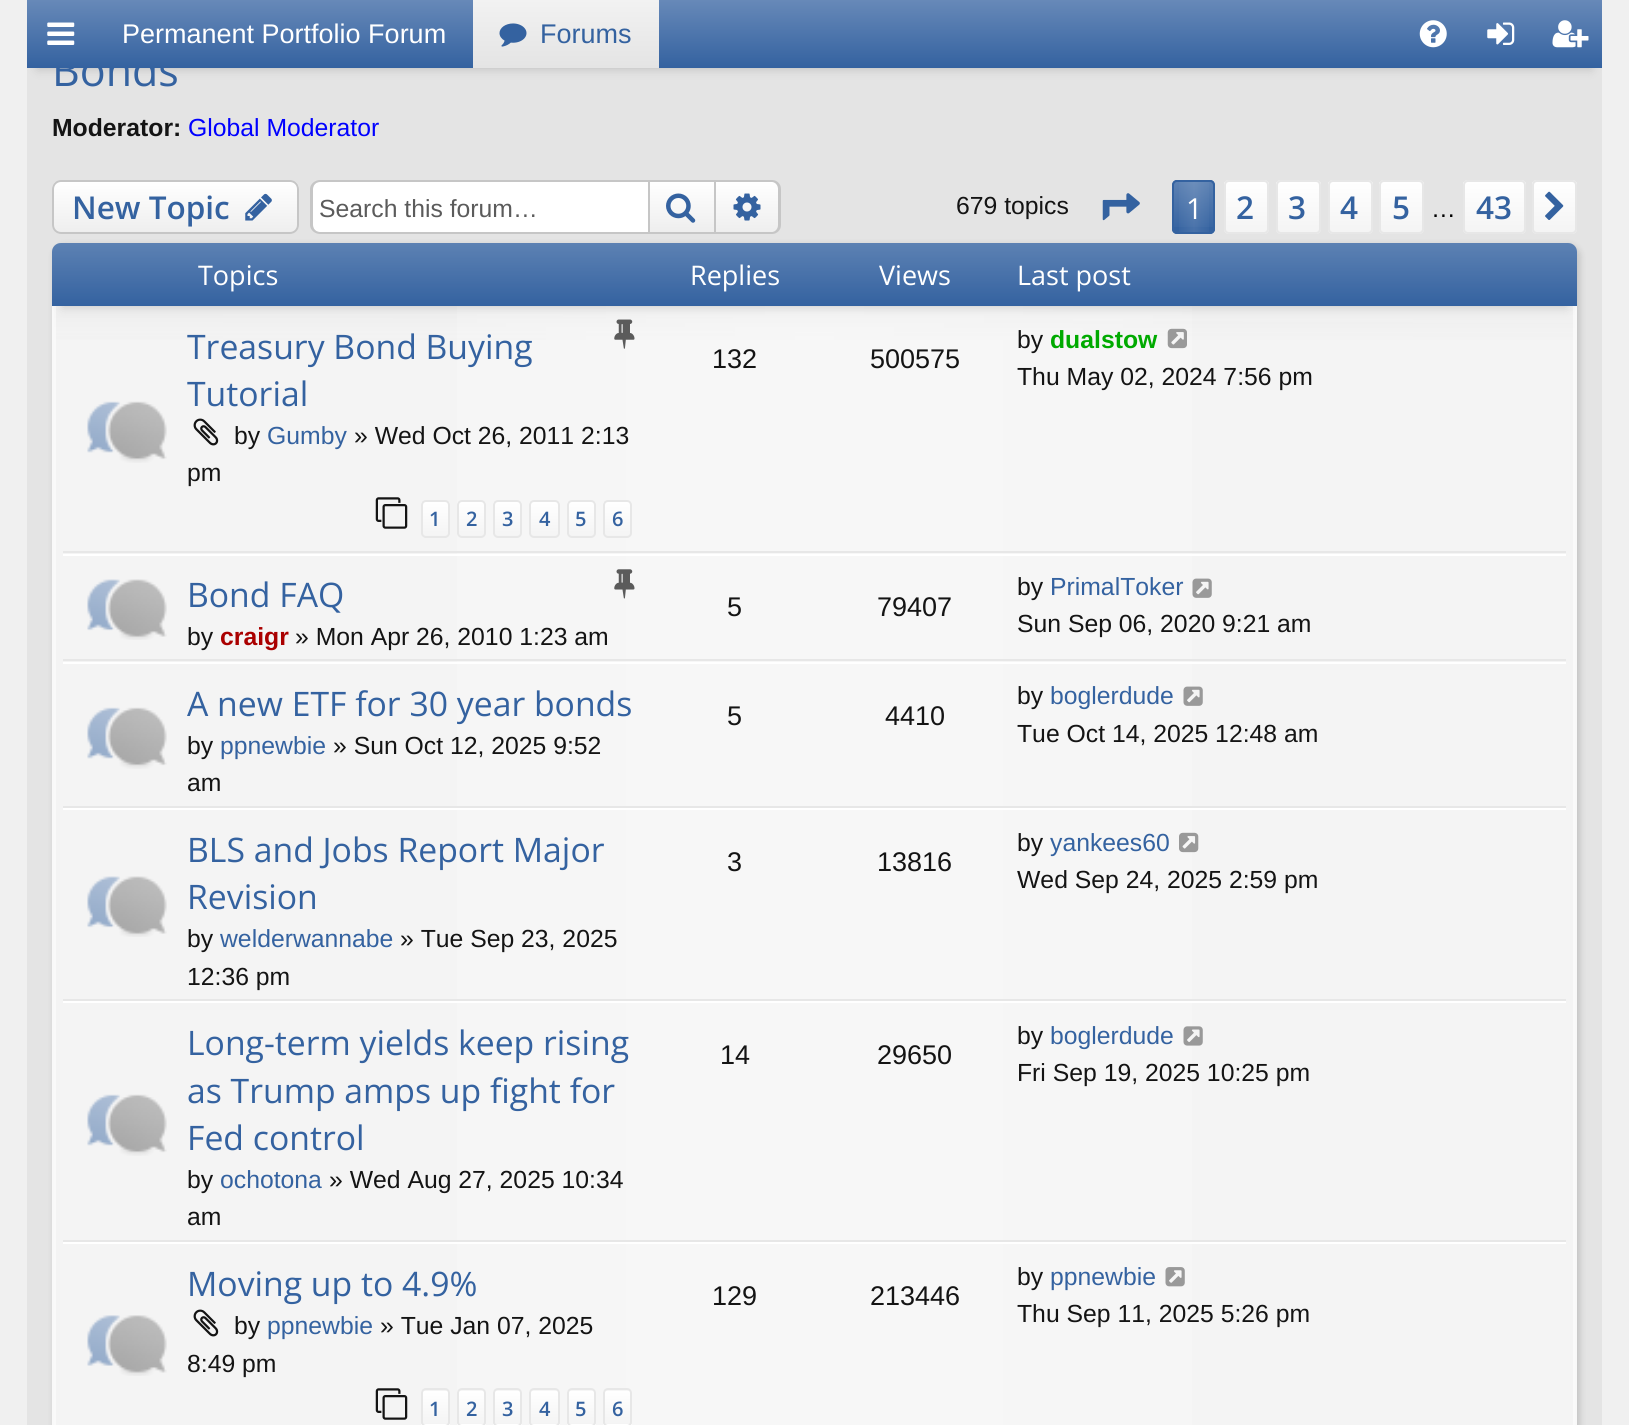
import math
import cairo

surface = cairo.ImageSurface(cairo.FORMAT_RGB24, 1629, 1425)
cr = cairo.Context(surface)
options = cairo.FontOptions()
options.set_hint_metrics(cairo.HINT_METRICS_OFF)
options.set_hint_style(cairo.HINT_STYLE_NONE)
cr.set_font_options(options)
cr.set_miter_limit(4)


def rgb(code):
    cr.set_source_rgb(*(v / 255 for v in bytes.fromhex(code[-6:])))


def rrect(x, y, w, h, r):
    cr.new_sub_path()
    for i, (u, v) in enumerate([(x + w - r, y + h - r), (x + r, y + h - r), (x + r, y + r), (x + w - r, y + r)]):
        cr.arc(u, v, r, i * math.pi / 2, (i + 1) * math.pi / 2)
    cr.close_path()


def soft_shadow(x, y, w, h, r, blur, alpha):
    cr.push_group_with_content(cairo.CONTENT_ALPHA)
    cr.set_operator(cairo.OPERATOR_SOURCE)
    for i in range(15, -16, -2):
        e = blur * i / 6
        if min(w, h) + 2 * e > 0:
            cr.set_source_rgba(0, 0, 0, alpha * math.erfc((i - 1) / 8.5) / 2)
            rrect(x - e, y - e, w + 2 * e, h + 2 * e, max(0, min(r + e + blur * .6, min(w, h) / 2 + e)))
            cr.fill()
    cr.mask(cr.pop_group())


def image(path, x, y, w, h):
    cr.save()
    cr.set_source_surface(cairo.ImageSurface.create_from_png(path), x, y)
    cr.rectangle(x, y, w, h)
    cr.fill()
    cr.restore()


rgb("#f0f0f0")
cr.paint()
rgb("#e4e4e4")
cr.rectangle(27, 68, 1575, 1357)
cr.fill()
rgb("#000000")
soft_shadow(38, 23, 1553, 45, 0, 5.5, 0.2)
soft_shadow(54, 245, 1526, 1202, 11, 3.5, 0.15)
rgb("#eeeeee")
rrect(52, 180, 247, 54, 9)
cr.fill()
cr.save()
rrect(52, 180, 247, 54, 9)
cr.clip()
gradient = cairo.LinearGradient(176, 182, 176, 232)
gradient.add_color_stop_rgba(0, 1, 1, 1, 1)
gradient.add_color_stop_rgba(1, 1, 1, 1, 0)
cr.set_source(gradient)
cr.rectangle(52, 182, 247, 49)
cr.fill()
cr.restore()
rrect(53, 181, 245, 52, 8)
rgb("#c6c6c6")
cr.stroke()
image("img/6.png", 245, 193, 27, 28)
rgb("#ffffff")
cr.new_path()
cr.move_to(320, 182)
cr.line_to(648, 182)
cr.line_to(648, 232)
cr.line_to(320, 232)
cr.curve_to(316, 232, 313, 229, 313, 225)
cr.line_to(313, 189)
cr.curve_to(313, 185, 316, 182, 320, 182)
cr.close_path()
cr.fill()
rgb("#c6c6c6")
cr.set_fill_rule(cairo.FILL_RULE_EVEN_ODD)
cr.new_path()
cr.move_to(320, 180)
cr.line_to(648, 180)
cr.line_to(648, 234)
cr.line_to(320, 234)
cr.curve_to(315, 234, 310, 230, 310, 225)
cr.line_to(310, 189)
cr.curve_to(310, 184, 315, 180, 320, 180)
cr.close_path()
cr.move_to(320, 182)
cr.line_to(648, 182)
cr.line_to(648, 232)
cr.line_to(320, 232)
cr.curve_to(316, 232, 313, 229, 313, 225)
cr.line_to(313, 189)
cr.curve_to(313, 185, 316, 182, 320, 182)
cr.close_path()
cr.fill()
gradient = cairo.LinearGradient(682, 182, 682, 232)
gradient.add_color_stop_rgba(0, 1, 1, 1, 1)
gradient.add_color_stop_rgba(1, 0.933, 0.933, 0.933, 1)
cr.set_source(gradient)
cr.rectangle(650, 182, 64, 50)
cr.fill()
cr.rectangle(649, 181, 66, 52)
rgb("#c6c6c6")
cr.stroke()
image("img/7.png", 666, 193, 30, 30)
rgb("#eeeeee")
cr.new_path()
cr.move_to(716, 182)
cr.line_to(772, 182)
cr.curve_to(776, 182, 779, 185, 779, 189)
cr.line_to(779, 225)
cr.curve_to(779, 229, 776, 232, 772, 232)
cr.line_to(716, 232)
cr.close_path()
cr.fill()
gradient = cairo.LinearGradient(747, 182, 747, 232)
gradient.add_color_stop_rgba(0, 1, 1, 1, 1)
gradient.add_color_stop_rgba(1, 1, 1, 1, 0)
cr.set_source(gradient)
cr.new_path()
cr.move_to(716, 182)
cr.line_to(772, 182)
cr.curve_to(776, 182, 779, 185, 779, 189)
cr.line_to(779, 225)
cr.curve_to(779, 229, 776, 232, 772, 232)
cr.line_to(716, 232)
cr.close_path()
cr.fill()
rgb("#c6c6c6")
cr.new_path()
cr.move_to(716, 180)
cr.line_to(772, 180)
cr.curve_to(777, 180, 781, 184, 781, 189)
cr.line_to(781, 225)
cr.curve_to(781, 230, 777, 234, 772, 234)
cr.line_to(716, 234)
cr.close_path()
cr.move_to(716, 182)
cr.line_to(772, 182)
cr.curve_to(775, 182, 778, 185, 778, 189)
cr.line_to(778, 225)
cr.curve_to(778, 229, 775, 232, 772, 232)
cr.line_to(716, 232)
cr.close_path()
cr.fill()
image("img/8.png", 733, 193, 28, 28)
image("img/9.png", 1102, 193, 38, 28)
rgb("#3462a0")
rrect(1172, 180, 43, 54, 5)
cr.fill()
gradient = cairo.LinearGradient(1175, 207, 1213, 207)
gradient.add_color_stop_rgba(0, 1, 1, 1, 0)
gradient.add_color_stop_rgba(0.5, 1, 1, 1, 0.1)
gradient.add_color_stop_rgba(1, 1, 1, 1, 0)
cr.set_source(gradient)
cr.rectangle(1179, 182, 30, 50)
cr.fill()
gradient = cairo.LinearGradient(1194, 182, 1194, 232)
gradient.add_color_stop_rgba(0, 1, 1, 1, 0.2)
gradient.add_color_stop_rgba(1, 1, 1, 1, 0)
cr.set_source(gradient)
cr.rectangle(1172, 182, 43, 45)
cr.fill()
rrect(1173, 181, 41, 52, 4)
rgb("#3462a0")
cr.stroke()
rgb("#f4f4f4")
rrect(1224, 180, 45, 54, 5)
cr.fill()
cr.save()
cr.set_fill_rule(cairo.FILL_RULE_WINDING)
rrect(1224, 180, 45, 54, 5)
cr.clip()
gradient = cairo.LinearGradient(1247, 182, 1247, 232)
gradient.add_color_stop_rgba(0, 1, 1, 1, 1)
gradient.add_color_stop_rgba(1, 1, 1, 1, 0)
cr.set_source(gradient)
cr.rectangle(1224, 182, 45, 49)
cr.fill()
cr.restore()
rrect(1225, 181, 43, 52, 4)
rgb("#e7e7e7")
cr.stroke()
rgb("#f4f4f4")
rrect(1276, 180, 45, 54, 5)
cr.fill()
cr.save()
cr.set_fill_rule(cairo.FILL_RULE_WINDING)
rrect(1276, 180, 45, 54, 5)
cr.clip()
gradient = cairo.LinearGradient(1298, 182, 1298, 232)
gradient.add_color_stop_rgba(0, 1, 1, 1, 1)
gradient.add_color_stop_rgba(1, 1, 1, 1, 0)
cr.set_source(gradient)
cr.rectangle(1276, 182, 45, 49)
cr.fill()
cr.restore()
rrect(1277, 181, 43, 52, 4)
rgb("#e7e7e7")
cr.stroke()
rgb("#f4f4f4")
rrect(1328, 180, 45, 54, 5)
cr.fill()
cr.save()
cr.set_fill_rule(cairo.FILL_RULE_WINDING)
rrect(1328, 180, 45, 54, 5)
cr.clip()
gradient = cairo.LinearGradient(1350, 182, 1350, 232)
gradient.add_color_stop_rgba(0, 1, 1, 1, 1)
gradient.add_color_stop_rgba(1, 1, 1, 1, 0)
cr.set_source(gradient)
cr.rectangle(1328, 182, 45, 49)
cr.fill()
cr.restore()
rrect(1329, 181, 43, 52, 4)
rgb("#e7e7e7")
cr.stroke()
rgb("#f4f4f4")
rrect(1379, 180, 45, 54, 5)
cr.fill()
cr.save()
cr.set_fill_rule(cairo.FILL_RULE_WINDING)
rrect(1379, 180, 45, 54, 5)
cr.clip()
gradient = cairo.LinearGradient(1402, 182, 1402, 232)
gradient.add_color_stop_rgba(0, 1, 1, 1, 1)
gradient.add_color_stop_rgba(1, 1, 1, 1, 0)
cr.set_source(gradient)
cr.rectangle(1379, 182, 45, 49)
cr.fill()
cr.restore()
rrect(1380, 181, 43, 52, 4)
rgb("#e7e7e7")
cr.stroke()
rgb("#f4f4f4")
rrect(1463, 180, 63, 54, 5)
cr.fill()
cr.save()
cr.set_fill_rule(cairo.FILL_RULE_WINDING)
rrect(1463, 180, 63, 54, 5)
cr.clip()
gradient = cairo.LinearGradient(1494, 182, 1494, 232)
gradient.add_color_stop_rgba(0, 1, 1, 1, 1)
gradient.add_color_stop_rgba(1, 1, 1, 1, 0)
cr.set_source(gradient)
cr.rectangle(1463, 182, 63, 49)
cr.fill()
cr.restore()
rrect(1464, 181, 61, 52, 4)
rgb("#e7e7e7")
cr.stroke()
rgb("#f4f4f4")
rrect(1532, 180, 45, 54, 5)
cr.fill()
cr.save()
cr.set_fill_rule(cairo.FILL_RULE_WINDING)
rrect(1532, 180, 45, 54, 5)
cr.clip()
gradient = cairo.LinearGradient(1555, 182, 1555, 232)
gradient.add_color_stop_rgba(0, 1, 1, 1, 1)
gradient.add_color_stop_rgba(1, 1, 1, 1, 0)
cr.set_source(gradient)
cr.rectangle(1532, 182, 45, 49)
cr.fill()
cr.restore()
rrect(1533, 181, 43, 52, 4)
rgb("#e7e7e7")
cr.stroke()
image("img/10.png", 1545, 191, 19, 29)
rgb("#f4f4f4")
rrect(52, 243, 1525, 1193, 11)
cr.fill()
cr.save()
cr.set_fill_rule(cairo.FILL_RULE_WINDING)
rrect(52, 243, 1525, 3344, 11)
cr.clip()
gradient = cairo.LinearGradient(814, 245, 815, 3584)
gradient.add_color_stop_rgba(0, 0.8, 0.8, 0.8, 0.2)
gradient.add_color_stop_rgba(0.01, 0.8, 0.8, 0.8, 0.25)
gradient.add_color_stop_rgba(0.03, 0.8, 0.8, 0.8, 0)
cr.set_source(gradient)
cr.rectangle(52, 245, 1525, 95)
cr.fill()
cr.restore()
gradient = cairo.LinearGradient(54, 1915, 1575, 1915)
gradient.add_color_stop_rgba(0, 1, 1, 1, 0)
gradient.add_color_stop_rgba(0.5, 1, 1, 1, 0.3)
gradient.add_color_stop_rgba(1, 1, 1, 1, 0)
cr.set_source(gradient)
cr.rectangle(457, 306, 735, 1119)
cr.fill()
rrect(55, 246, 1519, 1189, 8)
cr.set_source_rgba(1, 1, 1, 0.5)
cr.stroke()
rrect(53, 244, 1523, 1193, 10)
rgb("#f9f9f9")
cr.stroke()
rgb("#000000")
soft_shadow(63, 266, 1503, 40, 0, 5.5, 0.2)
rgb("#3462a0")
cr.new_path()
cr.move_to(61, 243)
cr.line_to(1568, 243)
cr.curve_to(1573, 243, 1577, 247, 1577, 252)
cr.line_to(1577, 306)
cr.line_to(52, 306)
cr.line_to(52, 252)
cr.curve_to(52, 247, 56, 243, 61, 243)
cr.close_path()
cr.fill()
gradient = cairo.LinearGradient(815, 243, 815, 306)
gradient.add_color_stop_rgba(0, 1, 1, 1, 0.2)
gradient.add_color_stop_rgba(1, 1, 1, 1, 0)
cr.set_source(gradient)
cr.new_path()
cr.move_to(61, 243)
cr.line_to(1568, 243)
cr.curve_to(1573, 243, 1577, 247, 1577, 252)
cr.line_to(1577, 306)
cr.line_to(52, 306)
cr.line_to(52, 252)
cr.curve_to(52, 247, 56, 243, 61, 243)
cr.close_path()
cr.fill()
rgb("#e7e7e7")
cr.rectangle(63, 551, 1503, 2)
cr.fill()
image("img/11.png", 87, 401, 80, 62)
image("img/12.png", 614, 319, 21, 30)
image("img/13.png", 193, 418, 26, 28)
image("img/14.png", 375, 497, 33, 32)
cr.save()
cr.set_fill_rule(cairo.FILL_RULE_WINDING)
rrect(421, 500, 29, 38, 5)
cr.clip()
gradient = cairo.LinearGradient(435, 502, 435, 536)
gradient.add_color_stop_rgba(0, 1, 1, 1, 1)
gradient.add_color_stop_rgba(1, 0.957, 0.957, 0.957, 1)
cr.set_source(gradient)
cr.rectangle(421, 502, 29, 34)
cr.fill()
cr.restore()
rrect(422, 501, 27, 36, 4)
cr.stroke()
cr.save()
cr.set_fill_rule(cairo.FILL_RULE_WINDING)
rrect(457, 500, 29, 38, 5)
cr.clip()
gradient = cairo.LinearGradient(471, 502, 471, 536)
gradient.add_color_stop_rgba(0, 1, 1, 1, 1)
gradient.add_color_stop_rgba(1, 0.957, 0.957, 0.957, 1)
cr.set_source(gradient)
cr.rectangle(457, 502, 29, 34)
cr.fill()
cr.restore()
rrect(458, 501, 27, 36, 4)
cr.stroke()
cr.save()
cr.set_fill_rule(cairo.FILL_RULE_WINDING)
rrect(493, 500, 29, 38, 5)
cr.clip()
gradient = cairo.LinearGradient(507, 502, 507, 536)
gradient.add_color_stop_rgba(0, 1, 1, 1, 1)
gradient.add_color_stop_rgba(1, 0.957, 0.957, 0.957, 1)
cr.set_source(gradient)
cr.rectangle(493, 502, 29, 34)
cr.fill()
cr.restore()
rrect(494, 501, 27, 36, 4)
cr.stroke()
cr.save()
cr.set_fill_rule(cairo.FILL_RULE_WINDING)
rrect(529, 500, 31, 38, 5)
cr.clip()
gradient = cairo.LinearGradient(545, 502, 545, 536)
gradient.add_color_stop_rgba(0, 1, 1, 1, 1)
gradient.add_color_stop_rgba(1, 0.957, 0.957, 0.957, 1)
cr.set_source(gradient)
cr.rectangle(529, 502, 31, 34)
cr.fill()
cr.restore()
rrect(530, 501, 29, 36, 4)
cr.stroke()
cr.save()
cr.set_fill_rule(cairo.FILL_RULE_WINDING)
rrect(567, 500, 29, 38, 5)
cr.clip()
gradient = cairo.LinearGradient(582, 502, 582, 536)
gradient.add_color_stop_rgba(0, 1, 1, 1, 1)
gradient.add_color_stop_rgba(1, 0.957, 0.957, 0.957, 1)
cr.set_source(gradient)
cr.rectangle(567, 502, 29, 34)
cr.fill()
cr.restore()
rrect(568, 501, 27, 36, 4)
cr.stroke()
cr.save()
cr.set_fill_rule(cairo.FILL_RULE_WINDING)
rrect(603, 500, 29, 38, 5)
cr.clip()
gradient = cairo.LinearGradient(618, 502, 618, 536)
gradient.add_color_stop_rgba(0, 1, 1, 1, 1)
gradient.add_color_stop_rgba(1, 0.957, 0.957, 0.957, 1)
cr.set_source(gradient)
cr.rectangle(603, 502, 29, 34)
cr.fill()
cr.restore()
rrect(604, 501, 27, 36, 4)
cr.stroke()
image("img/15.png", 1167, 328, 20, 21)
rgb("#ffffff")
cr.rectangle(63, 554, 1503, 2)
cr.fill()
rgb("#e7e7e7")
cr.rectangle(63, 659, 1503, 2)
cr.fill()
image("img/16.png", 87, 579, 80, 61)
image("img/17.png", 614, 569, 21, 30)
image("img/18.png", 1192, 578, 20, 20)
rgb("#ffffff")
cr.rectangle(63, 662, 1503, 2)
cr.fill()
rgb("#e7e7e7")
cr.rectangle(63, 806, 1503, 2)
cr.fill()
image("img/19.png", 87, 707, 80, 62)
image("img/20.png", 1183, 686, 20, 20)
rgb("#ffffff")
cr.rectangle(63, 808, 1503, 2)
cr.fill()
rgb("#e7e7e7")
cr.rectangle(63, 999, 1503, 2)
cr.fill()
image("img/16.png", 87, 876, 80, 61)
image("img/21.png", 1179, 832, 20, 21)
rgb("#ffffff")
cr.rectangle(63, 1001, 1503, 2)
cr.fill()
rgb("#e7e7e7")
cr.rectangle(63, 1240, 1503, 2)
cr.fill()
image("img/11.png", 87, 1094, 80, 62)
image("img/22.png", 1183, 1026, 20, 20)
rgb("#ffffff")
cr.rectangle(63, 1242, 1503, 2)
cr.fill()
image("img/23.png", 87, 1315, 80, 61)
image("img/13.png", 193, 1309, 26, 28)
image("img/14.png", 375, 1388, 33, 32)
cr.save()
cr.set_fill_rule(cairo.FILL_RULE_WINDING)
rrect(421, 1388, 29, 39, 5)
cr.clip()
gradient = cairo.LinearGradient(435, 1391, 435, 1424)
gradient.add_color_stop_rgba(0, 1, 1, 1, 1)
gradient.add_color_stop_rgba(1, 0.957, 0.957, 0.957, 1)
cr.set_source(gradient)
cr.rectangle(421, 1391, 29, 33)
cr.fill()
cr.restore()
gradient = cairo.LinearGradient(435, 1424, 435, 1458)
gradient.add_color_stop_rgba(0, 1, 1, 1, 1)
gradient.add_color_stop_rgba(1, 0.957, 0.957, 0.957, 1)
cr.set_source(gradient)
cr.rectangle(421, 1424, 29, 1)
cr.fill()
rrect(422, 1389, 27, 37, 4)
rgb("#e7e7e7")
cr.stroke()
cr.save()
cr.set_fill_rule(cairo.FILL_RULE_WINDING)
rrect(457, 1388, 29, 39, 5)
cr.clip()
gradient = cairo.LinearGradient(471, 1391, 471, 1424)
gradient.add_color_stop_rgba(0, 1, 1, 1, 1)
gradient.add_color_stop_rgba(1, 0.957, 0.957, 0.957, 1)
cr.set_source(gradient)
cr.rectangle(457, 1391, 29, 33)
cr.fill()
cr.restore()
gradient = cairo.LinearGradient(471, 1424, 471, 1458)
gradient.add_color_stop_rgba(0, 1, 1, 1, 1)
gradient.add_color_stop_rgba(1, 0.957, 0.957, 0.957, 1)
cr.set_source(gradient)
cr.rectangle(457, 1424, 29, 1)
cr.fill()
rrect(458, 1389, 27, 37, 4)
rgb("#e7e7e7")
cr.stroke()
cr.save()
cr.set_fill_rule(cairo.FILL_RULE_WINDING)
rrect(493, 1388, 29, 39, 5)
cr.clip()
gradient = cairo.LinearGradient(507, 1391, 507, 1424)
gradient.add_color_stop_rgba(0, 1, 1, 1, 1)
gradient.add_color_stop_rgba(1, 0.957, 0.957, 0.957, 1)
cr.set_source(gradient)
cr.rectangle(493, 1391, 29, 33)
cr.fill()
cr.restore()
gradient = cairo.LinearGradient(507, 1424, 507, 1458)
gradient.add_color_stop_rgba(0, 1, 1, 1, 1)
gradient.add_color_stop_rgba(1, 0.957, 0.957, 0.957, 1)
cr.set_source(gradient)
cr.rectangle(493, 1424, 29, 1)
cr.fill()
rrect(494, 1389, 27, 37, 4)
rgb("#e7e7e7")
cr.stroke()
cr.save()
cr.set_fill_rule(cairo.FILL_RULE_WINDING)
rrect(529, 1388, 31, 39, 5)
cr.clip()
gradient = cairo.LinearGradient(545, 1391, 545, 1424)
gradient.add_color_stop_rgba(0, 1, 1, 1, 1)
gradient.add_color_stop_rgba(1, 0.957, 0.957, 0.957, 1)
cr.set_source(gradient)
cr.rectangle(529, 1391, 31, 33)
cr.fill()
cr.restore()
gradient = cairo.LinearGradient(545, 1424, 545, 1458)
gradient.add_color_stop_rgba(0, 1, 1, 1, 1)
gradient.add_color_stop_rgba(1, 0.957, 0.957, 0.957, 1)
cr.set_source(gradient)
cr.rectangle(529, 1424, 31, 1)
cr.fill()
rrect(530, 1389, 29, 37, 4)
rgb("#e7e7e7")
cr.stroke()
cr.save()
cr.set_fill_rule(cairo.FILL_RULE_WINDING)
rrect(567, 1388, 29, 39, 5)
cr.clip()
gradient = cairo.LinearGradient(582, 1391, 582, 1424)
gradient.add_color_stop_rgba(0, 1, 1, 1, 1)
gradient.add_color_stop_rgba(1, 0.957, 0.957, 0.957, 1)
cr.set_source(gradient)
cr.rectangle(567, 1391, 29, 33)
cr.fill()
cr.restore()
gradient = cairo.LinearGradient(582, 1424, 582, 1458)
gradient.add_color_stop_rgba(0, 1, 1, 1, 1)
gradient.add_color_stop_rgba(1, 0.957, 0.957, 0.957, 1)
cr.set_source(gradient)
cr.rectangle(567, 1424, 29, 1)
cr.fill()
rrect(568, 1389, 27, 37, 4)
rgb("#e7e7e7")
cr.stroke()
cr.save()
cr.set_fill_rule(cairo.FILL_RULE_WINDING)
rrect(603, 1388, 29, 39, 5)
cr.clip()
gradient = cairo.LinearGradient(618, 1391, 618, 1424)
gradient.add_color_stop_rgba(0, 1, 1, 1, 1)
gradient.add_color_stop_rgba(1, 0.957, 0.957, 0.957, 1)
cr.set_source(gradient)
cr.rectangle(603, 1391, 29, 33)
cr.fill()
cr.restore()
gradient = cairo.LinearGradient(618, 1424, 618, 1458)
gradient.add_color_stop_rgba(0, 1, 1, 1, 1)
gradient.add_color_stop_rgba(1, 0.957, 0.957, 0.957, 1)
cr.set_source(gradient)
cr.rectangle(603, 1424, 29, 1)
cr.fill()
rrect(604, 1389, 27, 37, 4)
rgb("#e7e7e7")
cr.stroke()
image("img/24.png", 1165, 1267, 20, 20)
cr.select_font_face("Open Sans")
cr.set_font_size(43)
rgb("#3462a0")
cr.move_to(52, 86)
cr.show_text("Bonds")
gradient = cairo.LinearGradient(815, 0, 815, 68)
gradient.add_color_stop_rgba(0, 0.404, 0.537, 0.722, 1)
gradient.add_color_stop_rgba(1, 0.204, 0.384, 0.627, 1)
cr.set_source(gradient)
cr.rectangle(27, 0, 1575, 68)
cr.fill()
image("img/5.png", 1552, 20, 37, 28)
image("img/4.png", 1487, 22, 28, 23)
image("img/3.png", 1419, 20, 28, 28)
gradient = cairo.LinearGradient(566, 0, 566, 68)
gradient.add_color_stop_rgba(0, 0.949, 0.949, 0.949, 1)
gradient.add_color_stop_rgba(1, 0.894, 0.894, 0.894, 1)
cr.set_source(gradient)
cr.rectangle(473, 0, 186, 68)
cr.fill()
image("img/2.png", 499, 23, 28, 24)
cr.select_font_face("Liberation Sans")
cr.set_font_size(27)
rgb("#3462a0")
cr.move_to(540, 43)
cr.show_text("Forums")
rgb("#ffffff")
cr.move_to(122, 43)
cr.show_text("Permanent Portfolio Forum")
image("img/1.png", 47, 22, 28, 23)
cr.select_font_face("Liberation Sans", cairo.FONT_SLANT_NORMAL, cairo.FONT_WEIGHT_BOLD)
cr.set_font_size(24.75)
rgb("#141414")
cr.move_to(52, 136)
cr.show_text("Moderator:")
cr.select_font_face("Liberation Sans")
rgb("#0000ff")
cr.move_to(188, 136)
cr.show_text("Global Moderator")
cr.select_font_face("Open Sans SemiBold")
cr.set_font_size(31.5)
rgb("#3462a0")
cr.move_to(72, 219)
cr.show_text("New Topic")
cr.select_font_face("Liberation Sans")
cr.set_font_size(24.75)
rgb("#5b5b5b")
cr.move_to(319, 217)
cr.show_text("Search this forum…")
rgb("#141414")
cr.move_to(956, 214)
cr.show_text("679 topics")
cr.select_font_face("Open Sans")
cr.set_font_size(29)
rgb("#ffffff")
cr.move_to(1186, 219)
cr.show_text("1")
cr.select_font_face("Open Sans SemiBold")
cr.set_font_size(31.5)
rgb("#3462a0")
for x, y, s in [
    (1236, 219, "2"),
    (1288, 219, "3"),
    (1340, 219, "4"),
    (1392, 219, "5"),
]:
    cr.move_to(x, y)
    cr.show_text(s)
cr.select_font_face("Liberation Sans")
cr.set_font_size(24.75)
rgb("#000000")
cr.move_to(1431, 217)
cr.show_text("…")
cr.select_font_face("Open Sans SemiBold")
cr.set_font_size(31.5)
rgb("#3462a0")
cr.move_to(1476, 219)
cr.show_text("43")
cr.select_font_face("Open Sans")
cr.set_font_size(27)
rgb("#ffffff")
for x, y, s in [
    (198, 285, "Topics"),
    (690, 285, "Replies"),
    (879, 285, "Views"),
    (1017, 285, "Last post"),
]:
    cr.move_to(x, y)
    cr.show_text(s)
cr.set_font_size(33.75)
rgb("#3462a0")
cr.move_to(187, 359)
cr.show_text("Treasury Bond Buying")
cr.move_to(187, 406)
cr.show_text("Tutorial")
cr.select_font_face("Liberation Sans")
cr.set_font_size(24.75)
rgb("#141414")
cr.move_to(234, 444)
cr.show_text("by")
rgb("#3462a0")
cr.move_to(267, 444)
cr.show_text("Gumby")
rgb("#141414")
cr.move_to(354, 444)
cr.show_text("» Wed Oct 26, 2011 2:13")
cr.move_to(187, 481)
cr.show_text("pm")
cr.select_font_face("Open Sans SemiBold")
cr.set_font_size(20)
rgb("#3462a0")
for x, y, s in [
    (429, 526, "1"),
    (466, 526, "2"),
    (502, 526, "3"),
    (539, 526, "4"),
    (575, 526, "5"),
    (612, 526, "6"),
]:
    cr.move_to(x, y)
    cr.show_text(s)
cr.select_font_face("Liberation Sans")
cr.set_font_size(27)
rgb("#141414")
cr.move_to(712, 368)
cr.show_text("132")
cr.move_to(870, 368)
cr.show_text("500575")
cr.set_font_size(24.75)
cr.move_to(1017, 348)
cr.show_text("by")
cr.select_font_face("Liberation Sans", cairo.FONT_SLANT_NORMAL, cairo.FONT_WEIGHT_BOLD)
rgb("#00aa00")
cr.move_to(1050, 348)
cr.show_text("dualstow")
cr.select_font_face("Liberation Sans")
rgb("#141414")
cr.move_to(1017, 385)
cr.show_text("Thu May 02, 2024 7:56 pm")
cr.select_font_face("Open Sans")
cr.set_font_size(33.75)
rgb("#3462a0")
cr.move_to(187, 607)
cr.show_text("Bond FAQ")
cr.select_font_face("Liberation Sans")
cr.set_font_size(24.75)
rgb("#141414")
cr.move_to(187, 645)
cr.show_text("by")
cr.select_font_face("Liberation Sans", cairo.FONT_SLANT_NORMAL, cairo.FONT_WEIGHT_BOLD)
rgb("#aa0000")
cr.move_to(220, 645)
cr.show_text("craigr")
cr.select_font_face("Liberation Sans")
rgb("#141414")
cr.move_to(295, 645)
cr.show_text("» Mon Apr 26, 2010 1:23 am")
cr.set_font_size(27)
cr.move_to(727, 616)
cr.show_text("5")
cr.move_to(877, 616)
cr.show_text("79407")
cr.set_font_size(24.75)
cr.move_to(1017, 595)
cr.show_text("by")
rgb("#3462a0")
cr.move_to(1050, 595)
cr.show_text("PrimalToker")
rgb("#141414")
cr.move_to(1017, 632)
cr.show_text("Sun Sep 06, 2020 9:21 am")
cr.select_font_face("Open Sans")
cr.set_font_size(33.75)
rgb("#3462a0")
cr.move_to(187, 716)
cr.show_text("A new ETF for 30 year bonds")
cr.select_font_face("Liberation Sans")
cr.set_font_size(24.75)
rgb("#141414")
cr.move_to(187, 754)
cr.show_text("by")
rgb("#3462a0")
cr.move_to(220, 754)
cr.show_text("ppnewbie")
rgb("#141414")
cr.move_to(333, 754)
cr.show_text("» Sun Oct 12, 2025 9:52")
cr.move_to(187, 791)
cr.show_text("am")
cr.set_font_size(27)
cr.move_to(727, 725)
cr.show_text("5")
cr.move_to(885, 725)
cr.show_text("4410")
cr.set_font_size(24.75)
cr.move_to(1017, 704)
cr.show_text("by")
rgb("#3462a0")
cr.move_to(1050, 704)
cr.show_text("boglerdude")
rgb("#141414")
cr.move_to(1017, 742)
cr.show_text("Tue Oct 14, 2025 12:48 am")
cr.select_font_face("Open Sans")
cr.set_font_size(33.75)
rgb("#3462a0")
cr.move_to(187, 862)
cr.show_text("BLS and Jobs Report Major")
cr.move_to(187, 909)
cr.show_text("Revision")
cr.select_font_face("Liberation Sans")
cr.set_font_size(24.75)
rgb("#141414")
cr.move_to(187, 947)
cr.show_text("by")
rgb("#3462a0")
cr.move_to(220, 947)
cr.show_text("welderwannabe")
rgb("#141414")
cr.move_to(400, 947)
cr.show_text("» Tue Sep 23, 2025")
cr.move_to(187, 985)
cr.show_text("12:36 pm")
cr.set_font_size(27)
cr.move_to(727, 871)
cr.show_text("3")
cr.move_to(877, 871)
cr.show_text("13816")
cr.set_font_size(24.75)
cr.move_to(1017, 851)
cr.show_text("by")
rgb("#3462a0")
cr.move_to(1050, 851)
cr.show_text("yankees60")
rgb("#141414")
cr.move_to(1017, 888)
cr.show_text("Wed Sep 24, 2025 2:59 pm")
cr.select_font_face("Open Sans")
cr.set_font_size(33.75)
rgb("#3462a0")
for x, y, s in [
    (187, 1055, "Long-term yields keep rising"),
    (187, 1103, "as Trump amps up fight for"),
    (187, 1150, "Fed control"),
]:
    cr.move_to(x, y)
    cr.show_text(s)
cr.select_font_face("Liberation Sans")
cr.set_font_size(24.75)
rgb("#141414")
cr.move_to(187, 1188)
cr.show_text("by")
rgb("#3462a0")
cr.move_to(220, 1188)
cr.show_text("ochotona")
rgb("#141414")
cr.move_to(329, 1188)
cr.show_text("» Wed Aug 27, 2025 10:34")
cr.move_to(187, 1225)
cr.show_text("am")
cr.set_font_size(27)
cr.move_to(720, 1064)
cr.show_text("14")
cr.move_to(877, 1064)
cr.show_text("29650")
cr.set_font_size(24.75)
cr.move_to(1017, 1044)
cr.show_text("by")
rgb("#3462a0")
cr.move_to(1050, 1044)
cr.show_text("boglerdude")
rgb("#141414")
cr.move_to(1017, 1081)
cr.show_text("Fri Sep 19, 2025 10:25 pm")
cr.select_font_face("Open Sans")
cr.set_font_size(33.75)
rgb("#3462a0")
cr.move_to(187, 1296)
cr.show_text("Moving up to 4.9%")
cr.select_font_face("Liberation Sans")
cr.set_font_size(24.75)
rgb("#141414")
cr.move_to(234, 1334)
cr.show_text("by")
rgb("#3462a0")
cr.move_to(267, 1334)
cr.show_text("ppnewbie")
rgb("#141414")
cr.move_to(380, 1334)
cr.show_text("» Tue Jan 07, 2025")
cr.move_to(187, 1372)
cr.show_text("8:49 pm")
cr.select_font_face("Open Sans SemiBold")
cr.set_font_size(20)
rgb("#3462a0")
for x, y, s in [
    (429, 1416, "1"),
    (466, 1416, "2"),
    (502, 1416, "3"),
    (539, 1416, "4"),
    (575, 1416, "5"),
    (612, 1416, "6"),
]:
    cr.move_to(x, y)
    cr.show_text(s)
cr.select_font_face("Liberation Sans")
cr.set_font_size(27)
rgb("#141414")
cr.move_to(712, 1305)
cr.show_text("129")
cr.move_to(870, 1305)
cr.show_text("213446")
cr.set_font_size(24.75)
cr.move_to(1017, 1285)
cr.show_text("by")
rgb("#3462a0")
cr.move_to(1050, 1285)
cr.show_text("ppnewbie")
rgb("#141414")
cr.move_to(1017, 1322)
cr.show_text("Thu Sep 11, 2025 5:26 pm")
surface.write_to_png("page.png")
